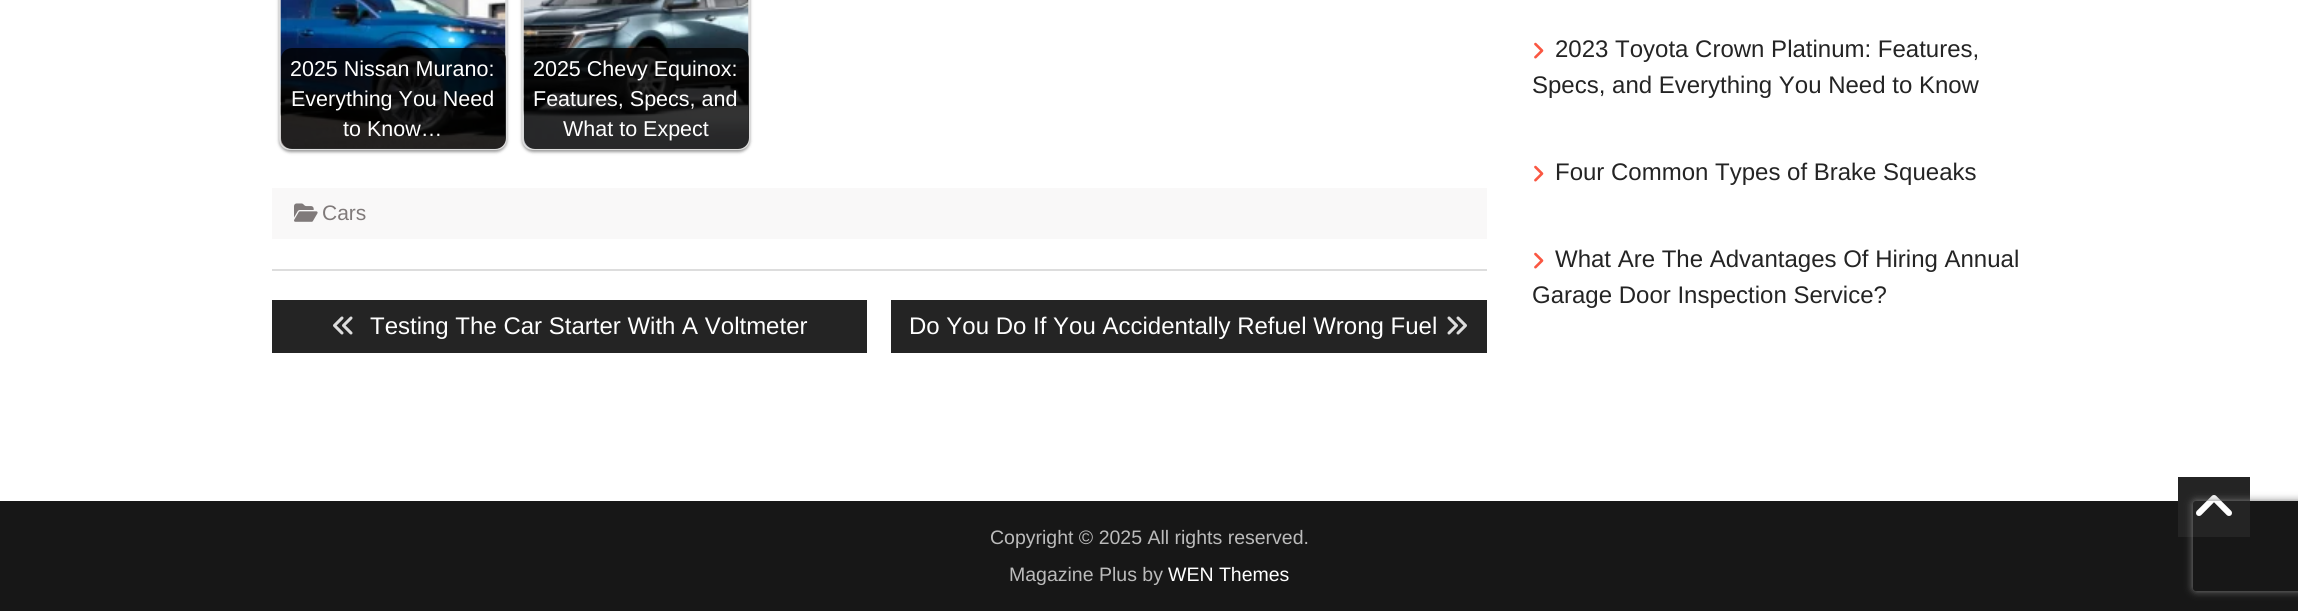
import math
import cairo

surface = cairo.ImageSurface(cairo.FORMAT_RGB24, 2298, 611)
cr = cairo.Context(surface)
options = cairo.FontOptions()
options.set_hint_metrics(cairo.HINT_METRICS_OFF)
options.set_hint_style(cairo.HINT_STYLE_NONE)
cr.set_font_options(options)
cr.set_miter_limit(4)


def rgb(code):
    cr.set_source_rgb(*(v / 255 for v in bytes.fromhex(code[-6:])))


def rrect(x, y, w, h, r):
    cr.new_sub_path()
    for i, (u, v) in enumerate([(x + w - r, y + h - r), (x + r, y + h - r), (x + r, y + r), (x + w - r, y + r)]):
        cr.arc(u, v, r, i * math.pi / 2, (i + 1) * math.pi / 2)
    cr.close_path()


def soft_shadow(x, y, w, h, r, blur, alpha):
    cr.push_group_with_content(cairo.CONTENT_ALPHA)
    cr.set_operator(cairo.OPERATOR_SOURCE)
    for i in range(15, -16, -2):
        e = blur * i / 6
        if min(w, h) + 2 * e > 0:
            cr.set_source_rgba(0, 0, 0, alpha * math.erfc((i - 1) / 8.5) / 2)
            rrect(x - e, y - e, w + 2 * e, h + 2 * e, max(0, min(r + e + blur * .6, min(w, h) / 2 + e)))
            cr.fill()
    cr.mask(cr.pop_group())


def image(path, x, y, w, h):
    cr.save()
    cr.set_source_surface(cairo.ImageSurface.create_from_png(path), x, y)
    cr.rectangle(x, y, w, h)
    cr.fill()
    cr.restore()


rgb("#ffffff")
cr.paint()
rgb("#dddddd")
cr.rectangle(272, 269, 1215, 2)
cr.fill()
rgb("#000000")
soft_shadow(279, -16, 228, 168, 11, 1.5, 0.4)
rrect(280, -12, 226, 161, 10)
rgb("#dddddd")
cr.stroke()
image("img/1.png", 280, 0, 226, 149)
cr.set_source_rgba(0, 0, 0, 0.8)
rrect(281, 48, 225, 101, 11)
cr.fill()
rgb("#000000")
soft_shadow(522, -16, 228, 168, 11, 1.5, 0.4)
rrect(523, -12, 226, 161, 10)
rgb("#dddddd")
cr.stroke()
image("img/2.png", 523, 0, 226, 149)
cr.set_source_rgba(0, 0, 0, 0.8)
rrect(524, 48, 225, 101, 11)
cr.fill()
rgb("#f9f8f8")
cr.rectangle(272, 188, 1215, 51)
cr.fill()
image("img/3.png", 294, 203, 24, 19)
rgb("#242424")
cr.rectangle(272, 300, 595, 53)
cr.fill()
image("img/4.png", 333, 316, 20, 19)
cr.rectangle(891, 300, 596, 53)
cr.fill()
image("img/5.png", 1447, 316, 20, 19)
image("img/6.png", 1534, 42, 10, 17)
image("img/6.png", 1534, 165, 10, 17)
image("img/6.png", 1534, 252, 10, 17)
rgb("#171717")
cr.rectangle(0, 501, 2298, 110)
cr.fill()
rgb("#242424")
cr.rectangle(2178, 477, 72, 60)
cr.fill()
image("img/7.png", 2196, 495, 36, 21)
cr.save()
cr.set_fill_rule(cairo.FILL_RULE_EVEN_ODD)
cr.new_path()
cr.move_to(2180, 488)
cr.line_to(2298, 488)
cr.line_to(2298, 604)
cr.line_to(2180, 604)
cr.close_path()
cr.move_to(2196, 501)
cr.line_to(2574, 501)
cr.curve_to(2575.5, 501, 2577, 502.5, 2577, 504)
cr.line_to(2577, 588)
cr.curve_to(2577, 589.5, 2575.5, 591, 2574, 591)
cr.line_to(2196, 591)
cr.curve_to(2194.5, 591, 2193, 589.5, 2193, 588)
cr.line_to(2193, 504)
cr.curve_to(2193, 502.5, 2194.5, 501, 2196, 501)
cr.close_path()
cr.clip()
rgb("#808080")
soft_shadow(2193, 501, 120, 90, 3, 4, 1)
cr.restore()
cr.select_font_face("Liberation Sans")
cr.set_font_size(21.5)
rgb("#ffffff")
for x, y, s in [
    (290, 76, "2025 Nissan Murano:"),
    (291, 106, "Everything You Need"),
    (343, 136, "to Know…"),
    (533, 76, "2025 Chevy Equinox:"),
    (533, 106, "Features, Specs, and"),
    (563, 136, "What to Expect"),
]:
    cr.move_to(x, y)
    cr.show_text(s)
cr.set_font_size(21)
rgb("#807a7a")
cr.move_to(322, 220)
cr.show_text("Cars")
cr.set_font_size(24)
rgb("#ffffff")
cr.move_to(370, 334)
cr.show_text("Testing The Car Starter With A Voltmeter")
cr.move_to(909, 334)
cr.show_text("Do You Do If You Accidentally Refuel Wrong Fuel")
rgb("#242424")
for x, y, s in [
    (1555, 57, "2023 Toyota Crown Platinum: Features,"),
    (1532, 93, "Specs, and Everything You Need to Know"),
    (1555, 180, "Four Common Types of Brake Squeaks"),
    (1555, 267, "What Are The Advantages Of Hiring Annual"),
    (1532, 303, "Garage Door Inspection Service?"),
]:
    cr.move_to(x, y)
    cr.show_text(s)
cr.set_font_size(19.5)
rgb("#bbbbbb")
cr.move_to(990, 544)
cr.show_text("Copyright © 2025 All rights reserved.")
cr.move_to(1009, 581)
cr.show_text("Magazine Plus by")
rgb("#ffffff")
cr.move_to(1168, 581)
cr.show_text("WEN Themes")
surface.write_to_png("page.png")
